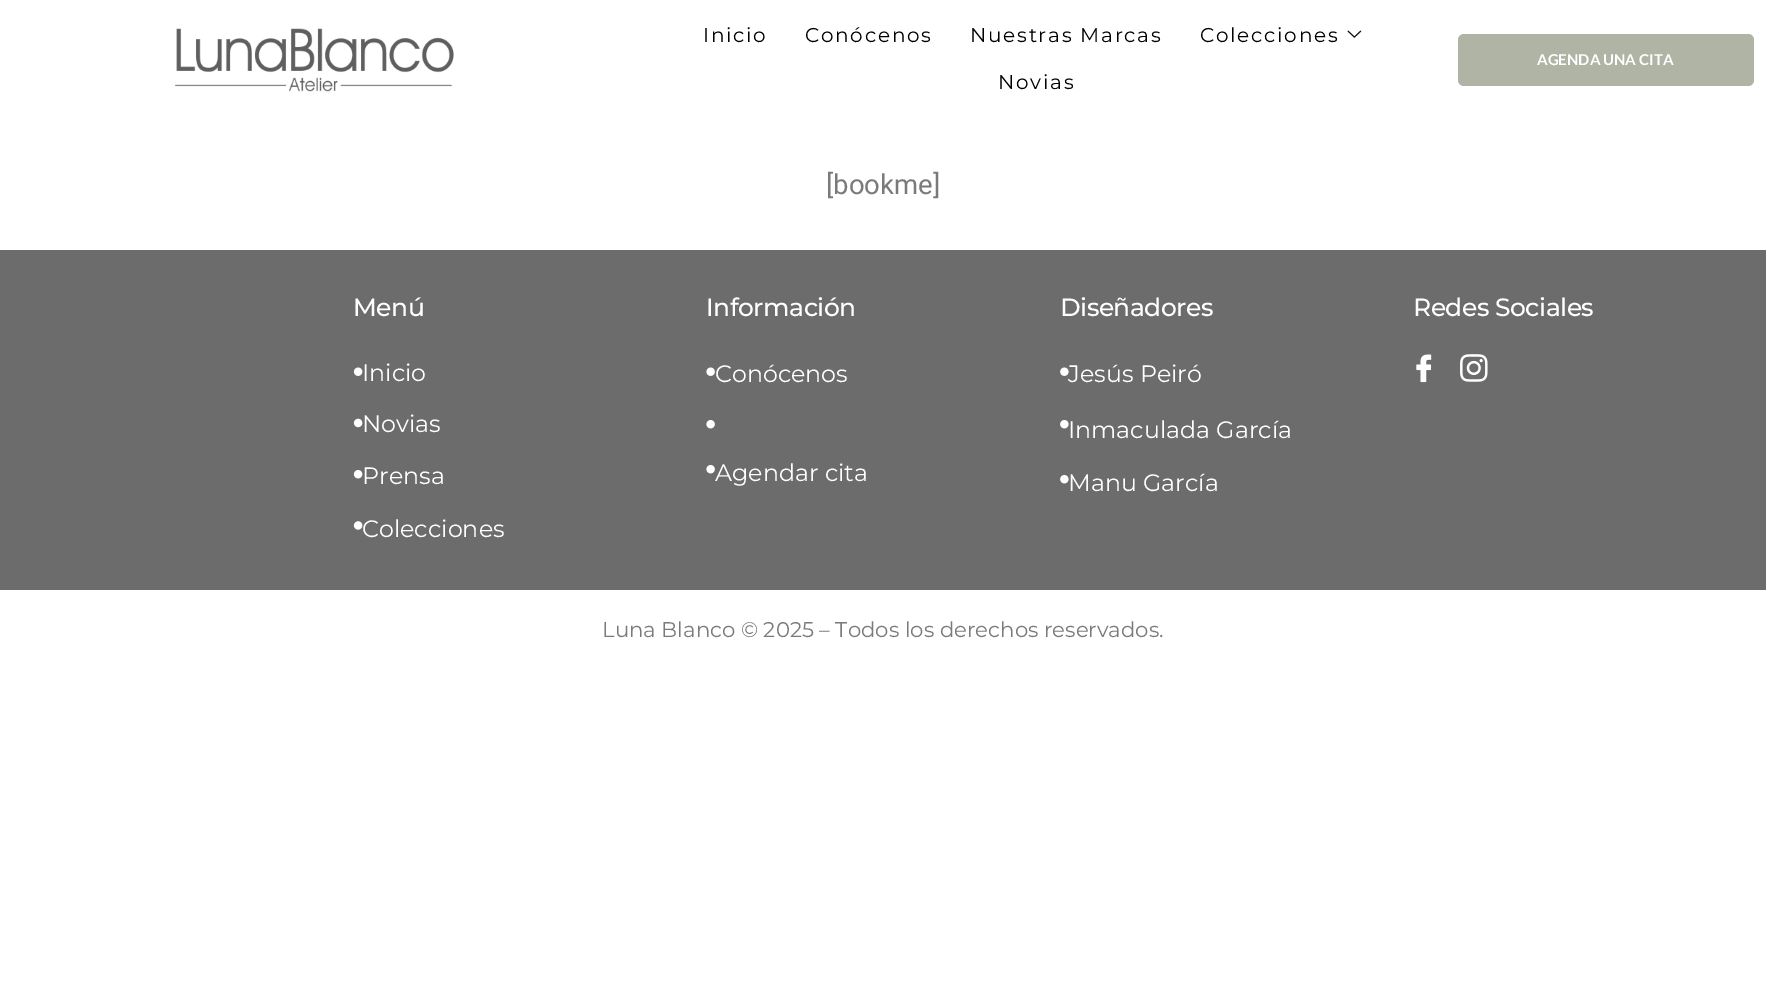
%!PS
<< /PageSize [1766 997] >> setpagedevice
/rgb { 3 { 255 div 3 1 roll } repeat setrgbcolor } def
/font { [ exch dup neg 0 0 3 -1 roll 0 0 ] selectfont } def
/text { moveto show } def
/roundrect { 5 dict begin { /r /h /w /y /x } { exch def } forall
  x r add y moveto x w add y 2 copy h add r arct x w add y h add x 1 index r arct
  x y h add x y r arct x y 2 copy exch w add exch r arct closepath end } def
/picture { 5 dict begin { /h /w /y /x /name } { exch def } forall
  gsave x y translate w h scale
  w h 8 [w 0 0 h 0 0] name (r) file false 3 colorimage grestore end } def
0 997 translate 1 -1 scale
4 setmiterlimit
255 255 255 rgb
0 0 1766 997 rectfill
(img_01.rgb) 175 28 279 64 picture
(img_02.rgb) 1347 30 15 8 picture
175 180 165 rgb
1458 34 296 52 6 roundrect fill
108 108 108 rgb
0 250 1766 340 rectfill
(img_03.rgb) 353 367 10 9 picture
(img_04.rgb) 353 418 10 10 picture
(img_05.rgb) 353 470 10 9 picture
(img_06.rgb) 353 521 10 9 picture
(img_07.rgb) 706 367 9 9 picture
(img_08.rgb) 706 420 9 9 picture
(img_08.rgb) 706 465 9 9 picture
(img_09.rgb) 1060 367 9 9 picture
(img_10.rgb) 1060 420 9 9 picture
(img_10.rgb) 1060 475 9 9 picture
(img_11.rgb) 1416 354 16 29 picture
(img_12.rgb) 1460 354 28 28 picture
/Montserrat-Regular 20 font
0 0 0 rgb
703 42 moveto 1.75 0 (Inicio) ashow
805 42 moveto 1.75 0 (Conócenos) ashow
970 42 moveto 1.75 0 (Nuestras Marcas) ashow
1200 42 moveto 1.75 0 (Colecciones) ashow
998 89 moveto 1.75 0 (Novias) ashow
/Lato-Bold 15 font
255 255 255 rgb
(AGENDA UNA CITA) 1537 65 text
/Roboto-Regular 27.5 font
122 122 122 rgb
([bookme]) 826 194 text
/Montserrat-Medium 25 font
255 255 255 rgb
353 316 moveto -0.5 0 (Menú) ashow
/Montserrat-Regular 23.75 font
(Inicio) 362 381 text
(Novias) 362 432 text
(Prensa) 362 484 text
(Colecciones) 362 537 text
/Montserrat-Medium 25 font
706 316 moveto -0.5 0 (Información) ashow
/Montserrat-Regular 23.75 font
(Conócenos) 715 382 text
(Agendar cita) 715 481 text
/Montserrat-Medium 25 font
1060 316 moveto -0.5 0 (Diseñadores) ashow
/Montserrat-Regular 23.75 font
(Jesús Peiró) 1068 382 text
(Inmaculada García) 1068 438 text
(Manu García) 1068 491 text
/Montserrat-Medium 25 font
1413 316 moveto -0.5 0 (Redes Sociales) ashow
/Montserrat-Regular 21.25 font
122 122 122 rgb
(Luna Blanco © 2025 – Todos los derechos reservados.) 602 637 text
showpage
